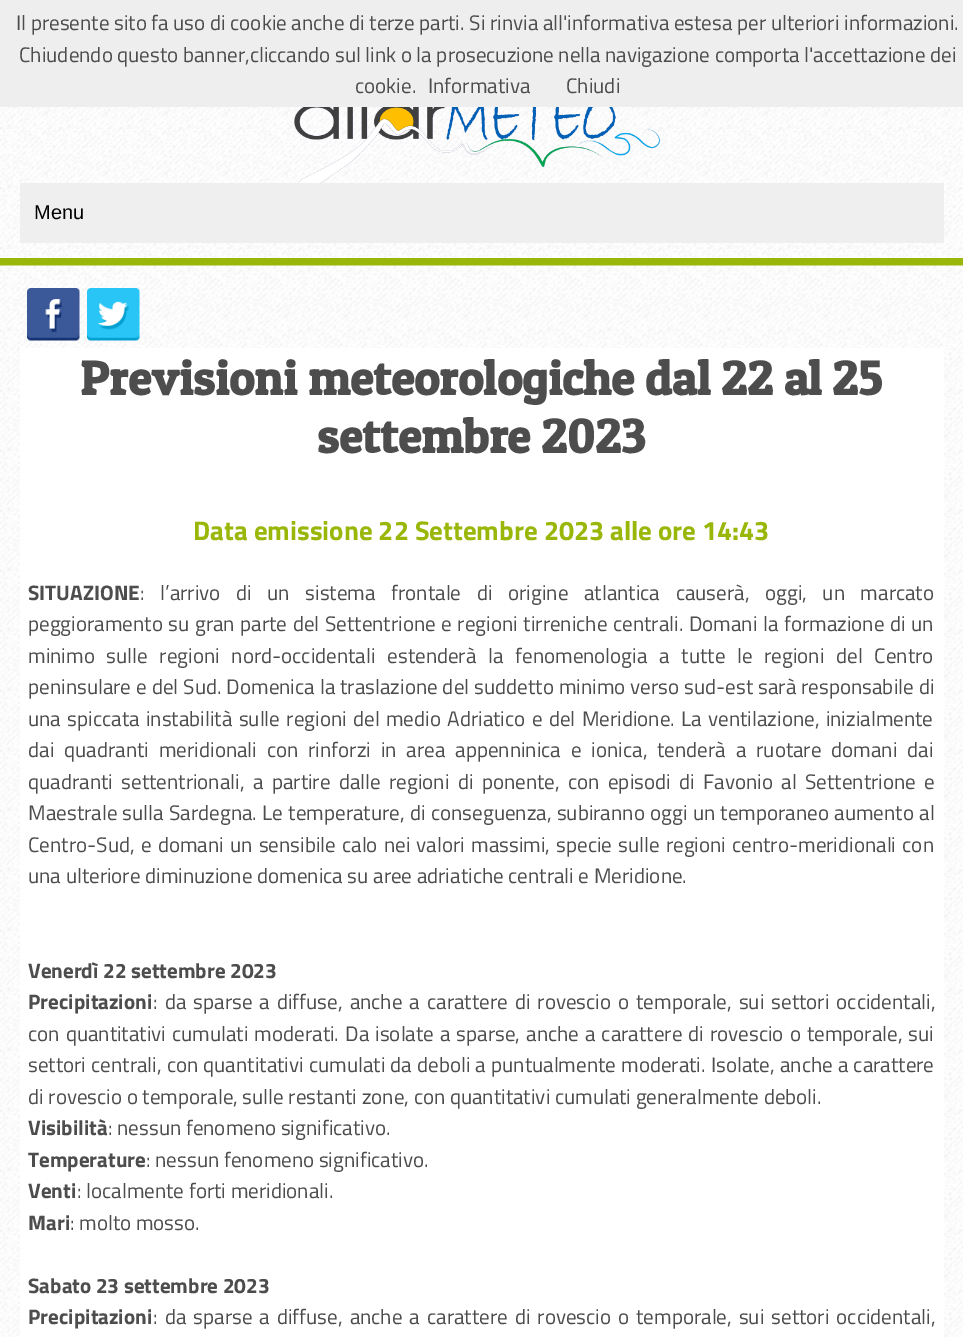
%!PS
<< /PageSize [963 1337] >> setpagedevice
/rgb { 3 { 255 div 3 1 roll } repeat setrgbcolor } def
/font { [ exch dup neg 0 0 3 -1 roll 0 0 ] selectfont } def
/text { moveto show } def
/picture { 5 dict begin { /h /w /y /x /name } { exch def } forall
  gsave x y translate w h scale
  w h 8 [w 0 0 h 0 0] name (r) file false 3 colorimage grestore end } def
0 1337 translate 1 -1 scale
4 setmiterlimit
255 255 255 rgb
0 0 963 1337 rectfill
238 238 238 rgb
0 0 963 107 rectfill
(img_01.rgb) 0 107 963 151 picture
152 183 9 rgb
0 258 963 8 rectfill
(img_02.rgb) 294 107 366 76 picture
239 239 239 rgb
20 183 924 60 rectfill
(img_03.rgb) 0 265 963 1072 picture
(img_04.rgb) 27 288 53 53 picture
(img_05.rgb) 87 288 53 53 picture
255 255 255 rgb
20 348 924 989 rectfill
/TitilliumWeb-Regular 21 font
77 77 77 rgb
(Il presente sito fa uso di cookie anche di terze parti. Si rinvia all'informativa estesa per ulteriori informazioni.) 16 30 text
(Chiudendo questo banner,cliccando sul link o la prosecuzione nella navigazione comporta l'accettazione dei) 19 62 text
(cookie.) 355 93 text
(Informativa) 428 93 text
(Chiudi) 566 93 text
/LiberationSans-Regular 20 font
0 0 0 rgb
(Menu) 34 219 text
/PatuaOne-Bold 48 font
77 77 77 rgb
(Previsioni meteorologiche dal 22 al 25) 80 395 text
(settembre 2023) 317 453 text
/TitilliumWeb-Bold 27 font
152 183 9 rgb
(Data emissione 22 Settembre 2023 alle ore 14:43) 193 540 text
/TitilliumWeb-Bold 21 font
77 77 77 rgb
(SITUAZIONE) 28 600 text
/TitilliumWeb-Regular 21 font
140 600 moveto 11 0 32 (: l’arrivo di un sistema frontale di origine atlantica causerà, oggi, un marcato) widthshow
28 631 moveto 1 0 32 (peggioramento su gran parte del Settentrione e regioni tirreniche centrali. Domani la formazione di un) widthshow
28 663 moveto 7.1 0 32 (minimo sulle regioni nord-occidentali estenderà la fenomenologia a tutte le regioni del Centro) widthshow
28 694 moveto 0.4 0 32 (peninsulare e del Sud. Domenica la traslazione del suddetto minimo verso sud-est sarà responsabile di) widthshow
28 726 moveto 1.75 0 32 (una spiccata instabilità sulle regioni del medio Adriatico e del Meridione. La ventilazione, inizialmente) widthshow
28 757 moveto 5.25 0 32 (dai quadranti meridionali con rinforzi in area appenninica e ionica, tenderà a ruotare domani dai) widthshow
28 789 moveto 3.75 0 32 (quadranti settentrionali, a partire dalle regioni di ponente, con episodi di Favonio al Settentrione e) widthshow
28 820 moveto 0.75 0 32 (Maestrale sulla Sardegna. Le temperature, di conseguenza, subiranno oggi un temporaneo aumento al) widthshow
28 852 moveto 1.6 0 32 (Centro-Sud, e domani un sensibile calo nei valori massimi, specie sulle regioni centro-meridionali con) widthshow
(una ulteriore diminuzione domenica su aree adriatiche centrali e Meridione.) 28 883 text
/TitilliumWeb-Bold 21 font
(Venerdì 22 settembre 2023) 28 978 text
(Precipitazioni) 28 1009 text
/TitilliumWeb-Regular 21 font
153 1009 moveto 2.4 0 32 (: da sparse a diffuse, anche a carattere di rovescio o temporale, sui settori occidentali,) widthshow
28 1041 moveto 1.4 0 32 (con quantitativi cumulati moderati. Da isolate a sparse, anche a carattere di rovescio o temporale, sui) widthshow
28 1072 moveto 0.5 0 32 (settori centrali, con quantitativi cumulati da deboli a puntualmente moderati. Isolate, anche a carattere) widthshow
(di rovescio o temporale, sulle restanti zone, con quantitativi cumulati generalmente deboli.) 28 1104 text
/TitilliumWeb-Bold 21 font
(Visibilità) 28 1135 text
/TitilliumWeb-Regular 21 font
(: nessun fenomeno significativo.) 108 1135 text
/TitilliumWeb-Bold 21 font
(Temperature) 28 1167 text
/TitilliumWeb-Regular 21 font
(: nessun fenomeno significativo.) 146 1167 text
/TitilliumWeb-Bold 21 font
(Venti) 28 1198 text
/TitilliumWeb-Regular 21 font
(: localmente forti meridionali.) 77 1198 text
/TitilliumWeb-Bold 21 font
(Mari) 28 1230 text
/TitilliumWeb-Regular 21 font
(: molto mosso.) 70 1230 text
/TitilliumWeb-Bold 21 font
(Sabato 23 settembre 2023) 28 1293 text
(Precipitazioni) 28 1324 text
/TitilliumWeb-Regular 21 font
153 1324 moveto 2.4 0 32 (: da sparse a diffuse, anche a carattere di rovescio o temporale, sui settori occidentali,) widthshow
showpage
